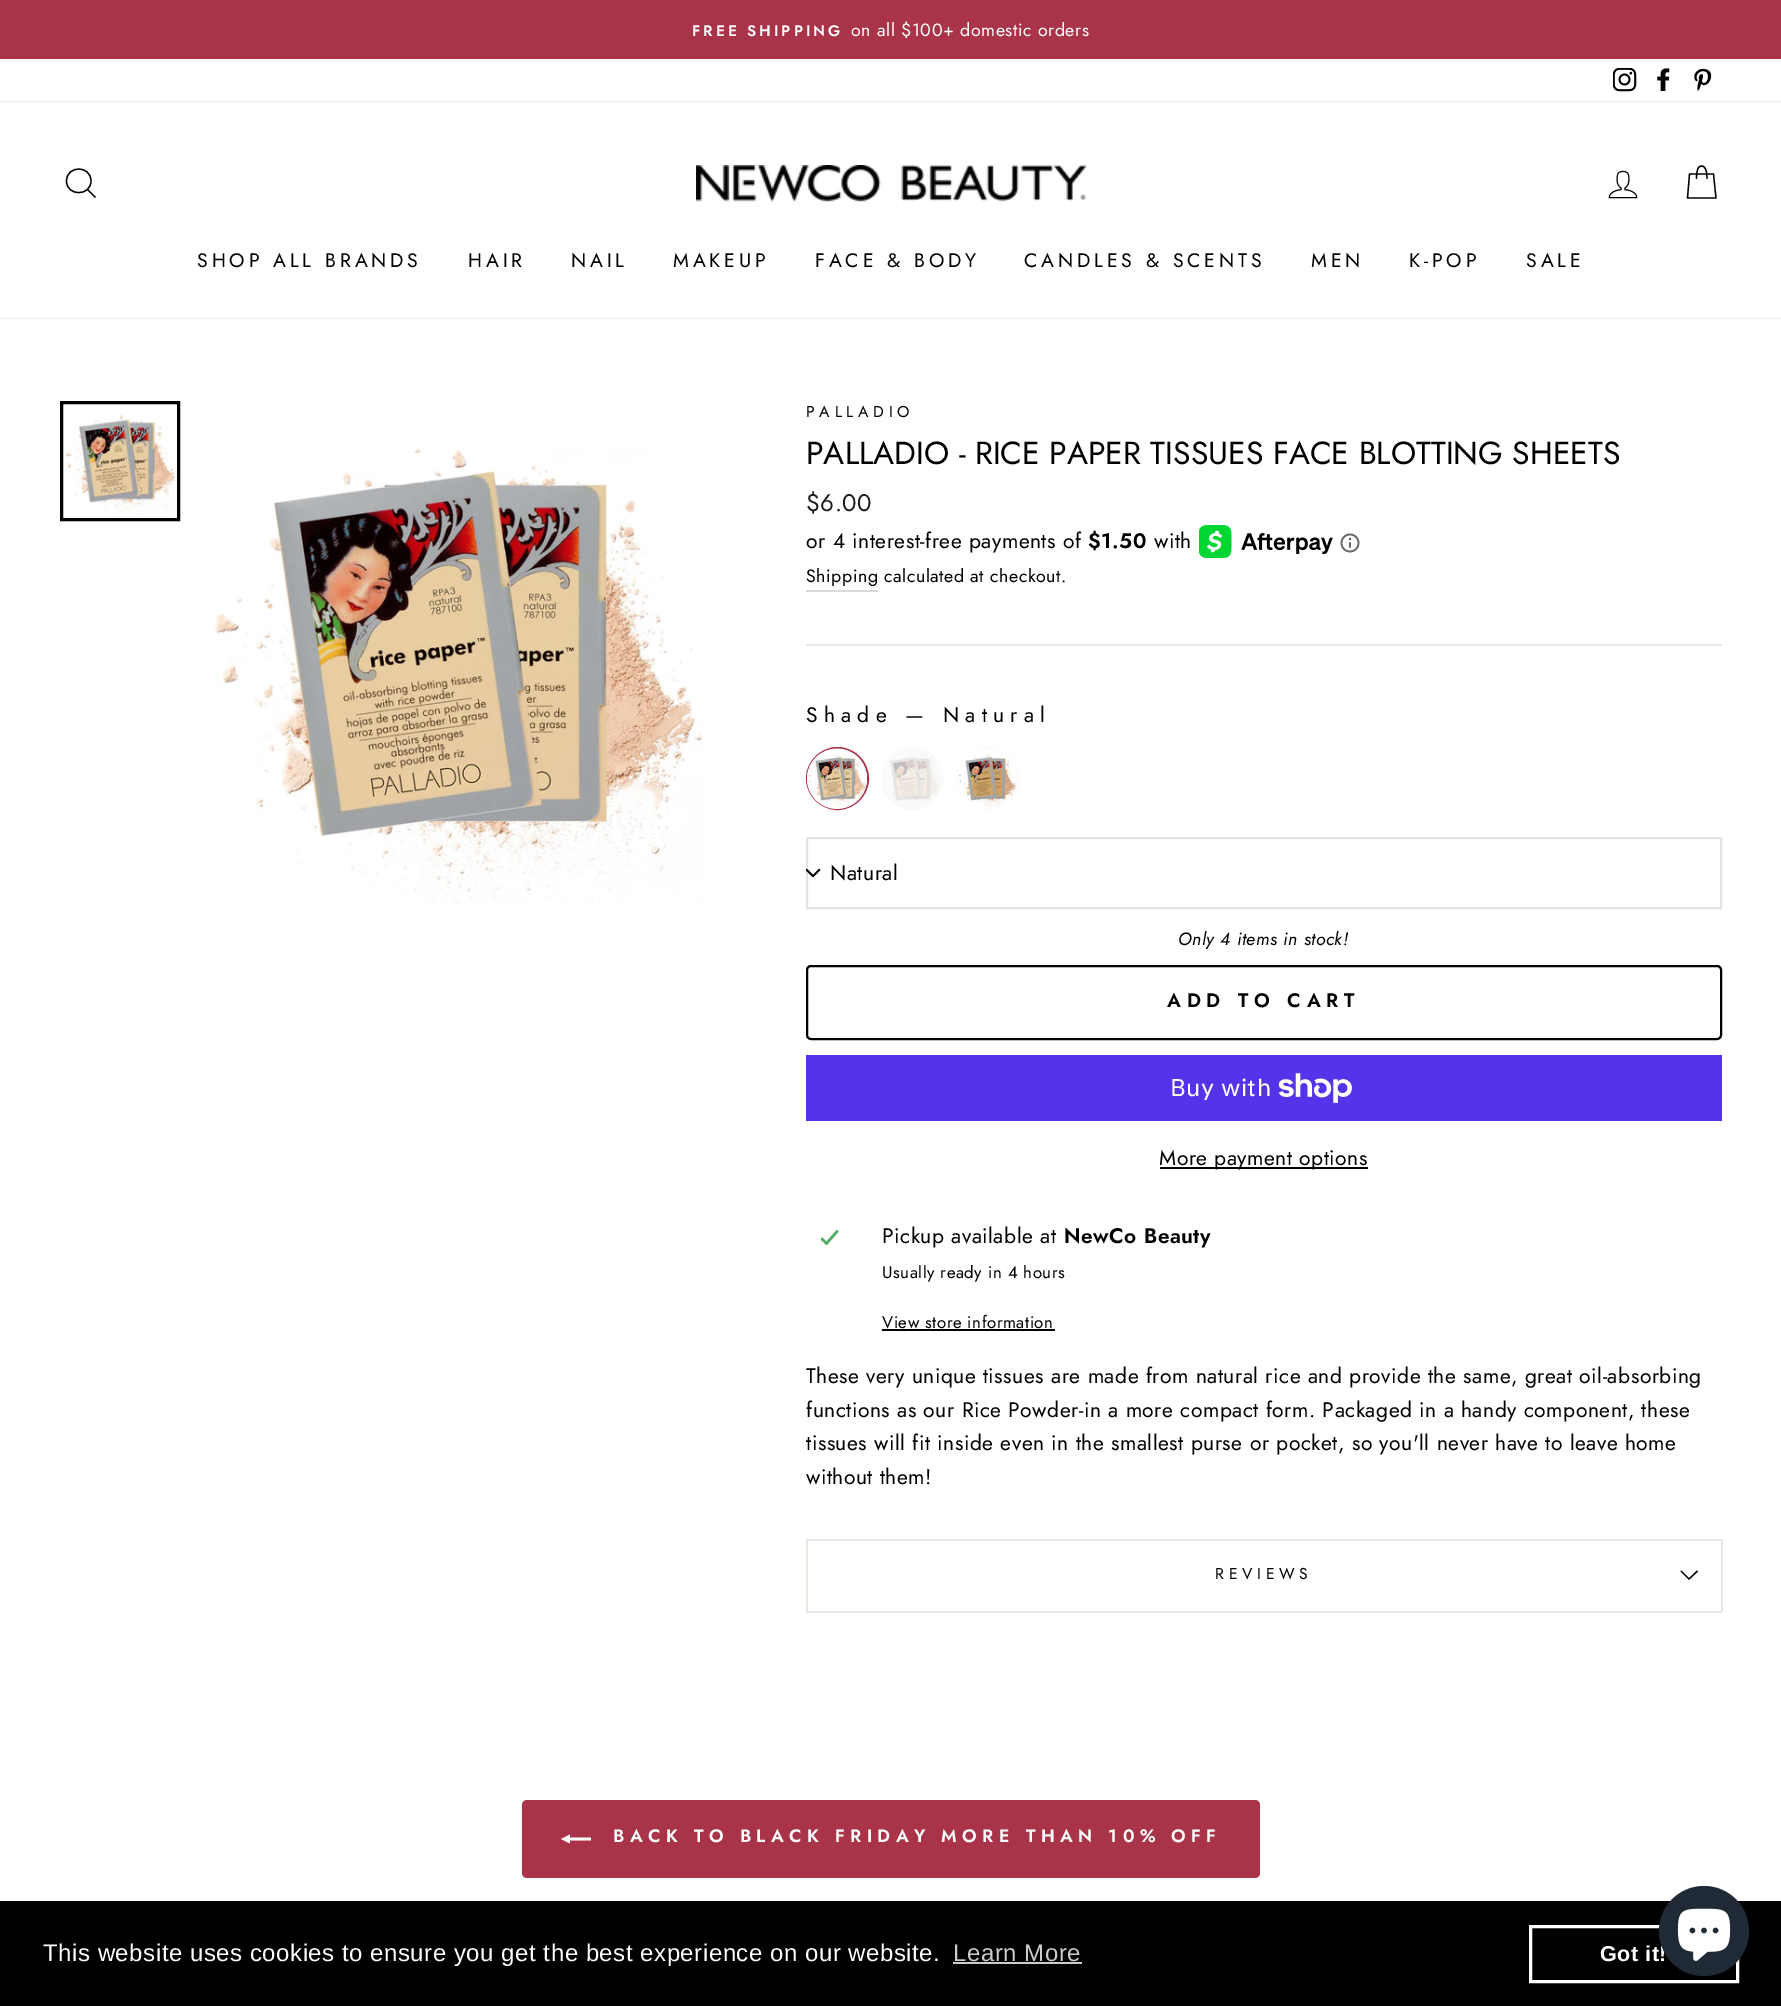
%!PS
<< /PageSize [1781 2006] /PageUsesTransparency true >> setpagedevice
/rgb { 3 { 255 div 3 1 roll } repeat setrgbcolor } def
/font { [ exch dup neg 0 0 3 -1 roll 0 0 ] selectfont } def
/text { moveto show } def
/alpha { dup .setfillconstantalpha .setstrokeconstantalpha } def
/circle { newpath 0 360 arc closepath } def
/roundrect { 5 dict begin { /r /h /w /y /x } { exch def } forall
  x r add y moveto x w add y 2 copy h add r arct x w add y h add x 1 index r arct
  x y h add x y r arct x y 2 copy exch w add exch r arct closepath end } def
/shadow { 12 dict begin { /a /b /q /h /w /y /x } { exch def } forall gsave /was 0 def
  9 -2 -9 { dup b mul 4 div /e exch def 1 sub .425 mul 2.718 exch exp 1 add a .99 .min exch div /now exch def
    1 1 now sub 1 was sub div sub alpha /was now def
    w h .min e 2 mul add 0 gt { x e sub y e sub w e 2 mul add h e 2 mul add
      q e add b .6 mul add w h .min 2 div e add .min 0 .max roundrect fill } if } for grestore end } def
/picture { 5 dict begin { /h /w /y /x /name } { exch def } forall
  gsave x y translate w h scale
  w h 8 [w 0 0 h 0 0] name (r) file false 3 colorimage grestore end } def
0 .pushpdf14devicefilter
0 2006 translate 1 -1 scale
4 setmiterlimit
255 255 255 rgb
0 0 1781 2006 rectfill
169 51 73 rgb
0 0 1781 59 rectfill
(img_01.rgb) 1613 68 24 24 picture
(img_02.rgb) 1657 68 13 23 picture
(img_03.rgb) 1694 68 18 23 picture
gsave
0 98 moveto 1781 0 rlineto 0 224 rlineto -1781 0 rlineto closepath 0 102 moveto 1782 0 rlineto 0 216 rlineto -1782 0 rlineto closepath eoclip newpath
0 0 0 rgb
0 102 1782 216 0 1 0.2 shadow
grestore
0 0 0 rgb
1.3 setlinewidth
91 181 moveto 0 15.5 -24.5 15.5 -24.5 0 rcurveto 0 -16 24.5 -16 24.5 0 rcurveto closepath 95.5 197.5 moveto -8 -8 rlineto stroke
(img_04.rgb) 696 165 390 37 picture
(img_05.rgb) 1608 170 30 29 picture
1696.5 179 moveto 0 -10.5 2 -13 5 -13 rcurveto 3 0 5.5 2.5 5.5 13 rcurveto 1689.5 174 moveto 24 0 rlineto 2.5 24 rlineto -28.5 0 rlineto closepath stroke
3 setlinewidth
61.5 402.5 117 117 rectstroke
(img_06.rgb) 65 414 112 103 picture
(img_07.rgb) 214 445 488 458 picture
(img_08.rgb) 1199 525 134 33 picture
(img_09.rgb) 1340 533 20 20 picture
217 217 217 rgb
806 590 72 2 rectfill
232 232 225 rgb
806 644 916 2 rectfill
169 51 73 rgb
2 setlinewidth
837.5 778.5 30.5 circle stroke
255 255 255 rgb
837 779 30 circle fill
(img_10.rgb) 807 748 61 61 picture
251 251 251 rgb
912.5 778.5 30.5 circle stroke
255 255 255 rgb
912 779 30 circle fill
(img_11.rgb) 883 754 59 51 picture
gsave
882 749 60 60 30 roundrect clip newpath
0.75 alpha
248 248 248 rgb
912.5 778.5 31.5 circle fill
grestore
251 251 251 rgb
987.5 778.5 30.5 circle stroke
255 255 255 rgb
987 779 30 circle fill
(img_12.rgb) 958 754 58 55 picture
227 227 227 rgb
807 838 914 70 rectstroke
(img_13.rgb) 806 868 15 10 picture
0 0 0 rgb
807 966 914 73 4 roundrect stroke
84 51 235 rgb
806 1055 916 66 rectfill
(img_14.rgb) 1278 1073 74 30 picture
0 0 0 rgb
1160 1167 208 2 rectfill
(img_15.rgb) 821 1230 18 15 picture
882 1329 173 2 rectfill
232 232 225 rgb
806 1611 916 2 rectfill
806 1539 916 2 rectfill
1721 1539 2 72 rectfill
806 1539 2 72 rectfill
0 0 0 rgb
1.3 setlinewidth
1681 1571 moveto 8 8 rlineto 8.5 -8 rlineto stroke
169 51 73 rgb
522 1800 738 78 5 roundrect fill
255 255 255 rgb
591 1837.5 moveto 0 3 rlineto -21 0 rlineto 0 3 rlineto -9 -4.5 rlineto 9 -4.5 rlineto 0 3 rlineto closepath fill
0 0 0 rgb
0 1901 1781 105 rectfill
204 204 204 rgb
953 1962 129 2 rectfill
255 255 255 rgb
3 setlinewidth
1530.5 1926.5 207 55 rectstroke
/Jost-SemiBold 15.25 font
692 36 moveto 3 0 (FREE SHIPPING) ashow
/Jost-Regular 17.8 font
851 36 moveto 0.52 0 (on all $100+ domestic orders) ashow
/Jost-Regular 19.5 font
0 0 0 rgb
197 267 moveto 3.9 0 (SHOP ALL BRANDS) ashow
468 267 moveto 3.9 0 (HAIR) ashow
571 267 moveto 3.9 0 (NAIL) ashow
673 267 moveto 3.9 0 (MAKEUP) ashow
815 267 moveto 3.9 0 (FACE & BODY) ashow
1024 267 moveto 3.9 0 (CANDLES & SCENTS) ashow
1311 267 moveto 3.9 0 (MEN) ashow
1409 267 moveto 3.9 0 (K-POP) ashow
1526 267 moveto 3.9 0 (SALE) ashow
/Jost-Regular 15.75 font
806 417 moveto 4.75 0 (PALLADIO) ashow
/Jost-Regular 31.9 font
(PALLADIO - RICE PAPER TISSUES FACE BLOTTING SHEETS) 806 464 text
/Jost-Regular 24 font
28 29 29 rgb
806 511 moveto 0.52 0 ($6.00) ashow
/Jost-Regular 21 font
0 0 0 rgb
806 548 moveto 0.52 0 (or 4 interest-free payments of) ashow
/Jost-SemiBold 21 font
1088 548 moveto 0.52 0 ($1.50) ashow
/Jost-Regular 21 font
1154 548 moveto 0.52 0 (with) ashow
/Jost-Regular 17.8 font
806 582 moveto 0.52 0 (Shipping) ashow
884 582 moveto 0.52 0 (calculated at checkout.) ashow
/Jost-Regular 21 font
806 722 moveto 6.25 0 (Shade — Natural) ashow
830 880 moveto 0.52 0 (Natural) ashow
/Jost-Italic 17.8 font
1178 945 moveto 0.52 0 (Only 4 items in stock!) ashow
/Jost-SemiBold 19.5 font
1167 1007 moveto 5.8 0 (ADD TO CART) ashow
/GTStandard-Regular 24 font
255 255 255 rgb
1170 1096 moveto 0.52 0 (Buy with) ashow
/Jost-Regular 21 font
0 0 0 rgb
1159 1165 moveto 0.52 0 (More payment options) ashow
882 1243 moveto 0.52 0 (Pickup available at) ashow
/Jost-SemiBold 21 font
1064 1243 moveto 0.52 0 (NewCo Beauty) ashow
/Jost-Regular 16.75 font
882 1278 moveto 0.52 0 (Usually ready in 4 hours) ashow
882 1328 moveto 0.52 0 (View store information) ashow
/Jost-Regular 21 font
806 1383 moveto 0.52 0 (These very unique tissues are made from natural rice and provide the same, great oil-absorbing) ashow
806 1417 moveto 0.52 0 (functions as our Rice Powder-in a more compact form. Packaged in a handy component, these) ashow
806 1450 moveto 0.52 0 (tissues will fit inside even in the smallest purse or pocket, so you'll never have to leave home) ashow
806 1484 moveto 0.52 0 (without them!) ashow
/Jost-Regular 15.75 font
1215 1579 moveto 4.75 0 (REVIEWS) ashow
/Jost-SemiBold 18 font
255 255 255 rgb
613 1842 moveto 5.4 0 (BACK TO BLACK FRIDAY MORE THAN 10% OFF) ashow
/LiberationSans-Regular 24 font
43 1961 moveto 0.52 0 (This website uses cookies to ensure you get the best experience on our website.) ashow
204 204 204 rgb
953 1961 moveto 0.52 0 (Learn More) ashow
/LiberationSans-Bold 21.5 font
255 255 255 rgb
1600 1961 moveto 0.52 0 (Got it!) ashow
32 42 54 rgb
1704 1931 45 circle fill
(img_16.rgb) 1677 1908 54 53 picture
.poppdf14devicefilter showpage
